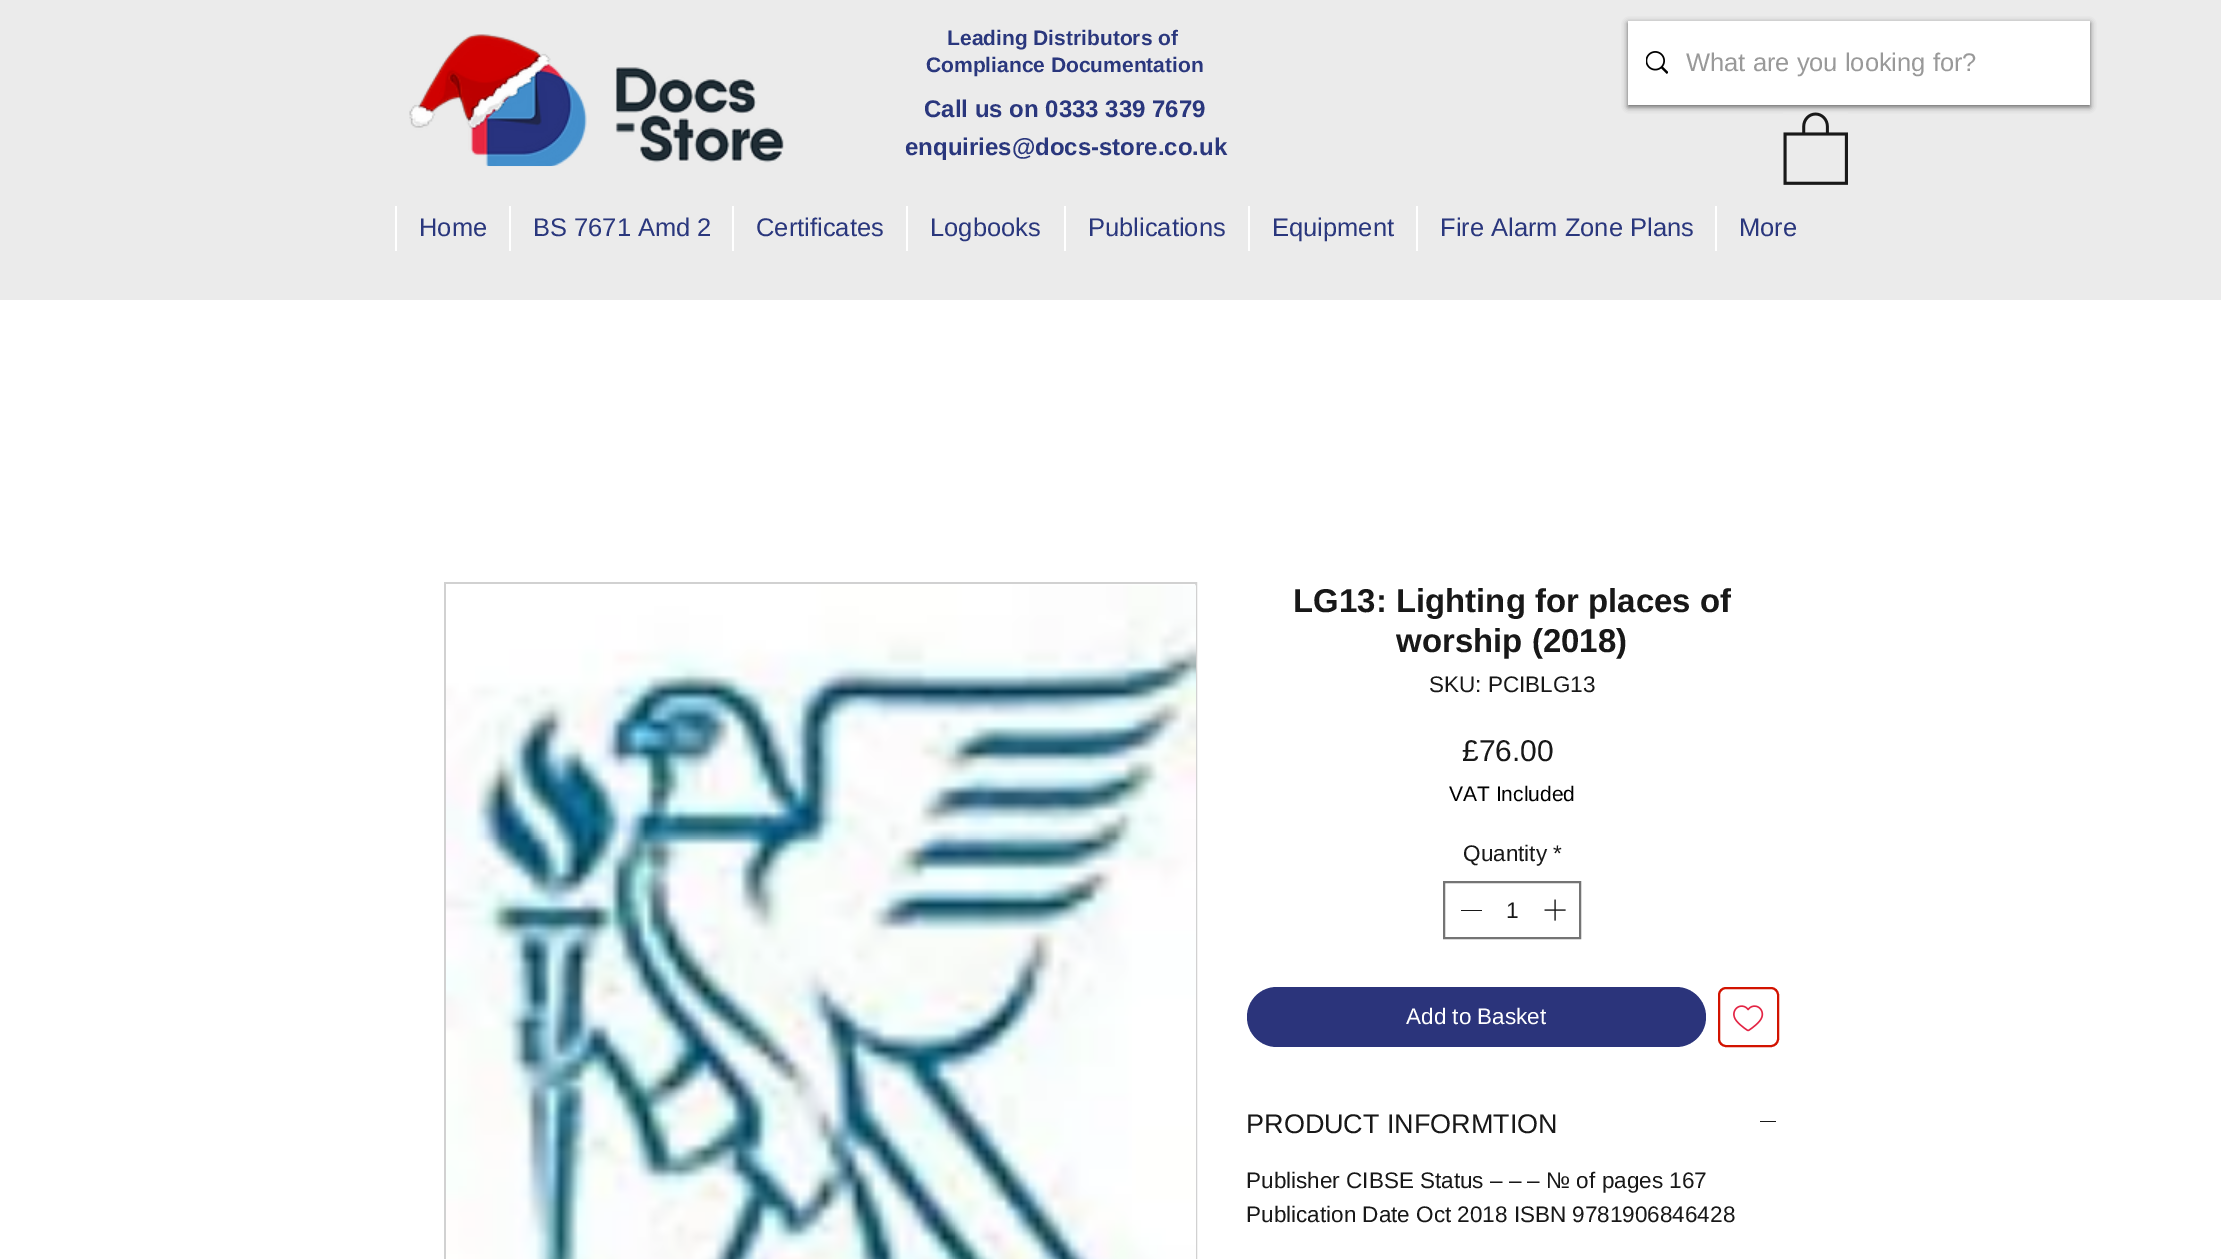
%!PS
<< /PageSize [2221 1259] /PageUsesTransparency true >> setpagedevice
/rgb { 3 { 255 div 3 1 roll } repeat setrgbcolor } def
/font { [ exch dup neg 0 0 3 -1 roll 0 0 ] selectfont } def
/text { moveto show } def
/alpha { dup .setfillconstantalpha .setstrokeconstantalpha } def
/roundrect { 5 dict begin { /r /h /w /y /x } { exch def } forall
  x r add y moveto x w add y 2 copy h add r arct x w add y h add x 1 index r arct
  x y h add x y r arct x y 2 copy exch w add exch r arct closepath end } def
/shadow { 12 dict begin { /a /b /q /h /w /y /x } { exch def } forall gsave /was 0 def
  9 -2 -9 { dup b mul 4 div /e exch def 1 sub .425 mul 2.718 exch exp 1 add a .99 .min exch div /now exch def
    1 1 now sub 1 was sub div sub alpha /was now def
    w h .min e 2 mul add 0 gt { x e sub y e sub w e 2 mul add h e 2 mul add
      q e add b .6 mul add w h .min 2 div e add .min 0 .max roundrect fill } if } for grestore end } def
/picture { 5 dict begin { /h /w /y /x /name } { exch def } forall
  gsave x y translate w h scale
  w h 8 [w 0 0 h 0 0] name (r) file false 3 colorimage grestore end } def
0 .pushpdf14devicefilter
0 1259 translate 1 -1 scale
4 setmiterlimit
255 255 255 rgb
0 0 2221 1259 rectfill
235 235 235 rgb
0 0 2221 300 rectfill
(img_01.rgb) 409 34 375 133 picture
0 0 0 rgb
1628 23 462 84 0 3 0.6 shadow
255 255 255 rgb
1628 21 462 84 rectfill
(img_02.rgb) 1646 51 22 23 picture
(img_03.rgb) 1783 112 65 73 picture
395 206 2 45 rectfill
509 206 2 45 rectfill
732 206 2 45 rectfill
906 206 2 45 rectfill
1064 206 2 45 rectfill
1248 206 2 45 rectfill
1416 206 2 45 rectfill
1715 206 2 45 rectfill
209 209 209 rgb
2 setlinewidth
445 583 751 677 rectstroke
(img_04.rgb) 446 584 750 675 picture
116 116 116 rgb
1444 882 136 56 rectstroke
24 24 24 rgb
1461 910 21 1 rectfill
(img_05.rgb) 1544 899 22 22 picture
43 52 123 rgb
1247 987 459 60 30 roundrect fill
210 19 0 rgb
1719 988 59 58 7 roundrect stroke
(img_06.rgb) 1733 1005 31 27 picture
24 24 24 rgb
1760 1121 16 1 rectfill
/LiberationSans-Bold 21 font
42 55 125 rgb
(Leading Distributors of) 947 45 text
(Compliance Documentation) 926 72 text
/LiberationSans-Bold 24 font
(Call us on 0333 339 7679) 924 117 text
(enquiries@docs-store.co.uk) 905 155 text
/LiberationSans-Regular 25.5 font
153 153 153 rgb
(What are you looking for?) 1686 71 text
42 55 125 rgb
(Home) 419 236 text
(BS 7671 Amd 2) 533 236 text
(Certificates) 756 236 text
(Logbooks) 930 236 text
(Publications) 1088 236 text
(Equipment) 1272 236 text
(Fire Alarm Zone Plans) 1440 236 text
(More) 1739 236 text
/LiberationSans-Bold 33 font
24 24 24 rgb
(LG13: Lighting for places of) 1293 612 text
(worship \(2018\)) 1396 652 text
/LiberationSans-Regular 22.5 font
(SKU: PCIBLG13) 1429 692 text
/LiberationSans-Regular 30 font
(£76.00) 1462 761 text
/LiberationSans-Regular 21 font
0 0 0 rgb
(VAT Included) 1449 801 text
/LiberationSans-Regular 22.5 font
24 24 24 rgb
(Quantity *) 1463 861 text
(1) 1506 918 text
255 255 255 rgb
(Add to Basket) 1406 1024 text
/LiberationSans-Regular 27 font
24 24 24 rgb
(PRODUCT INFORMTION) 1246 1133 text
/LiberationSans-Regular 22.5 font
(Publisher CIBSE Status – – – № of pages 167) 1246 1188 text
(Publication Date Oct 2018 ISBN 9781906846428) 1246 1222 text
.poppdf14devicefilter showpage
